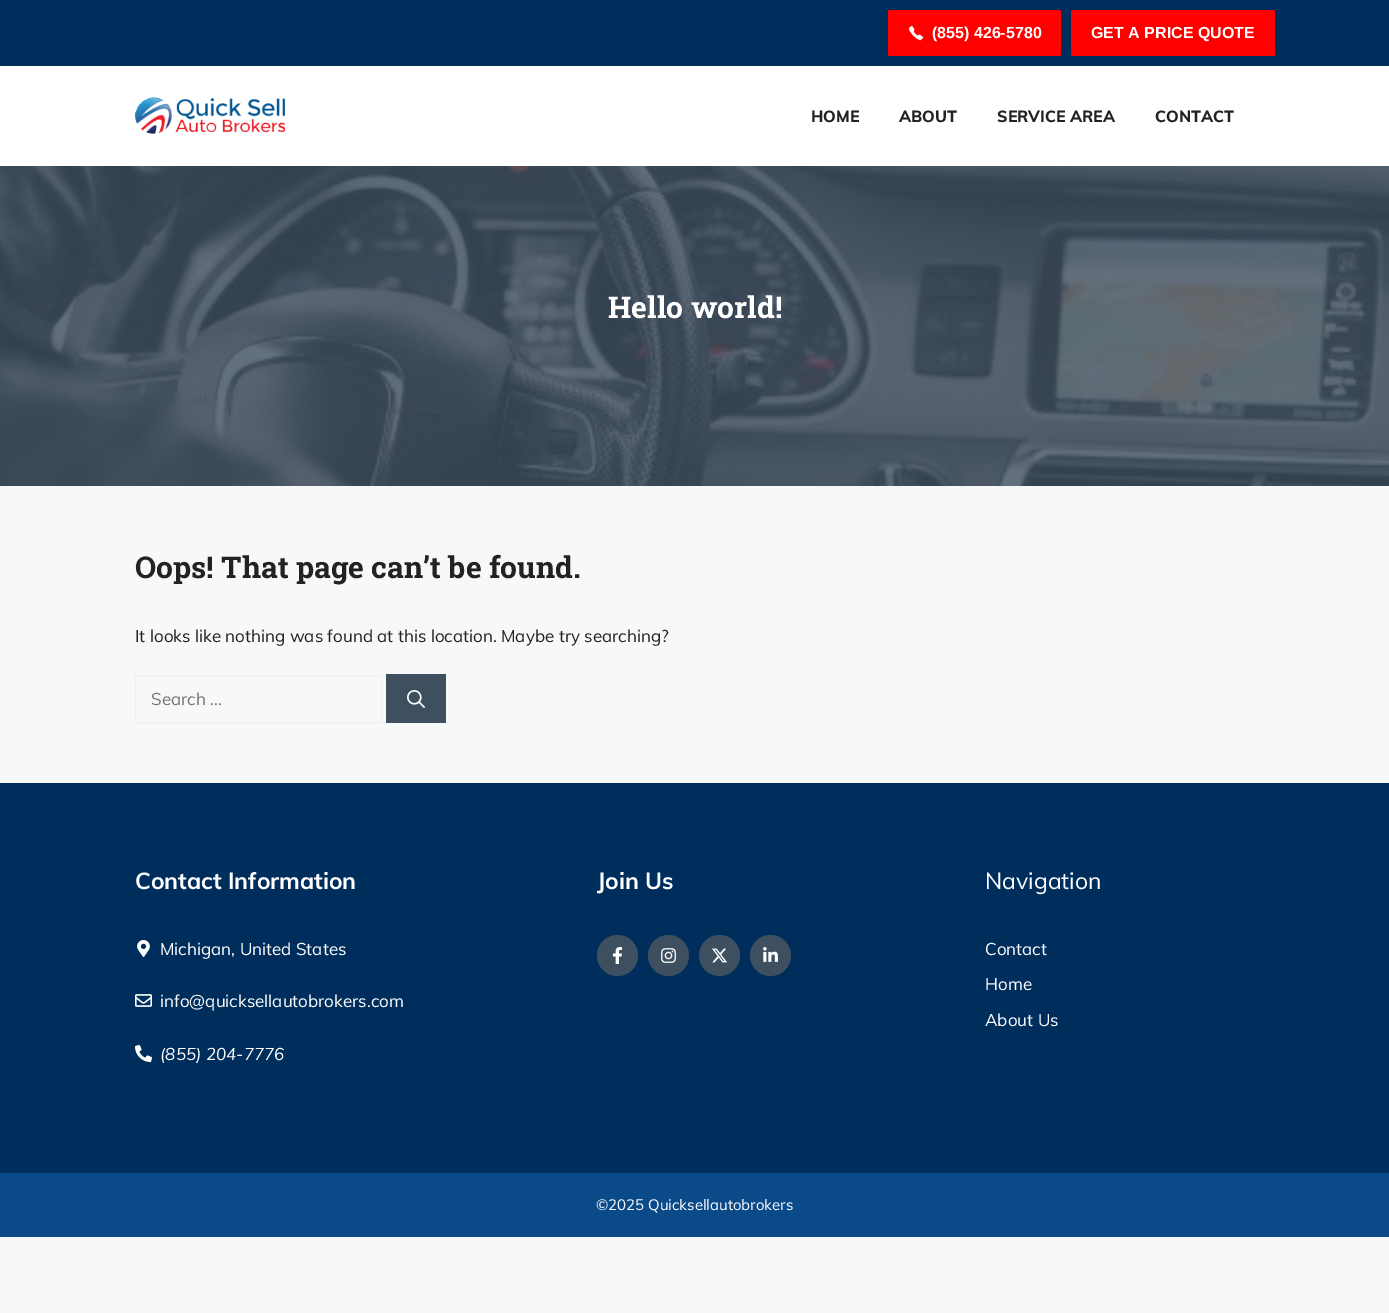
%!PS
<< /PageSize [1389 1313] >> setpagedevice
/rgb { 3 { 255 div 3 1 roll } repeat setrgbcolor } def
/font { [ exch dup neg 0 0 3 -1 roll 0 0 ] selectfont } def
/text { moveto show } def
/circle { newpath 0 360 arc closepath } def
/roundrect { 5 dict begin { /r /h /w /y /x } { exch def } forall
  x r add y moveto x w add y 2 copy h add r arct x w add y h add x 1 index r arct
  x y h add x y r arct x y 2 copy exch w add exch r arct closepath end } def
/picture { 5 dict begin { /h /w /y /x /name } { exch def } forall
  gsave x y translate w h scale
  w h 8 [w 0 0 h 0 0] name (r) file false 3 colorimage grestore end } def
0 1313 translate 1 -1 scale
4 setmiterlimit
247 248 249 rgb
0 0 1389 1313 rectfill
0 46 92 rgb
0 0 1389 66 rectfill
255 0 0 rgb
888 10 173 46 2 roundrect fill
(img_01.rgb) 908 25 16 16 picture
1071 10 204 46 2 roundrect fill
255 255 255 rgb
0 66 1389 100 rectfill
(img_02.rgb) 135 97 150 37 picture
(img_03.rgb) 0 166 1389 320 picture
240 240 240 rgb
135.5 675.5 246 47 rectstroke
62 79 96 rgb
386 674 60 49 rectfill
(img_04.rgb) 407 690 18 18 picture
0 46 92 rgb
0 783 1389 390 rectfill
(img_05.rgb) 137 940 13 17 picture
(img_06.rgb) 135 994 17 13 picture
(img_07.rgb) 135 1045 17 17 picture
62 79 96 rgb
617.5 955.5 20.5 circle fill
(img_08.rgb) 612 947 11 17 picture
668.5 955.5 20.5 circle fill
(img_09.rgb) 661 948 15 15 picture
719.5 955.5 20.5 circle fill
(img_10.rgb) 712 948 15 15 picture
770.5 955.5 20.5 circle fill
(img_11.rgb) 763 947 15 15 picture
11 74 137 rgb
0 1173 1389 64 rectfill
/LiberationSans-Bold 16 font
255 255 255 rgb
(\(855\) 426-5780) 932 38 text
(GET A PRICE QUOTE) 1091 38 text
/Muli-ExtraBold 16 font
34 34 34 rgb
(HOME) 811 122 text
(ABOUT) 899 122 text
(SERVICE AREA) 997 122 text
(CONTACT) 1155 122 text
/RobotoSlab-Bold 30 font
255 255 255 rgb
(Hello world!) 608 318 text
34 34 34 rgb
(Oops! That page can’t be found.) 135 578 text
/Muli-Regular 17 font
(It looks like nothing was found at this location. Maybe try searching?) 135 642 text
117 117 117 rgb
(Search …) 151 705 text
/Muli-Bold 23 font
255 255 255 rgb
(Contact Information) 135 889 text
/Muli-Regular 17 font
(Michigan, United States) 160 955 text
(info@quicksellautobrokers.com) 160 1007 text
/Muli-Italic 17 font
(\(855\) 204-7776) 160 1060 text
/Muli-Bold 23 font
(Join Us) 597 889 text
/Muli-Regular 23 font
(Navigation) 985 889 text
/Muli-Regular 17 font
(Contact) 985 955 text
(Home) 985 990 text
(About Us) 985 1026 text
/Muli-Regular 15 font
(©2025 Quicksellautobrokers) 596 1210 text
showpage
